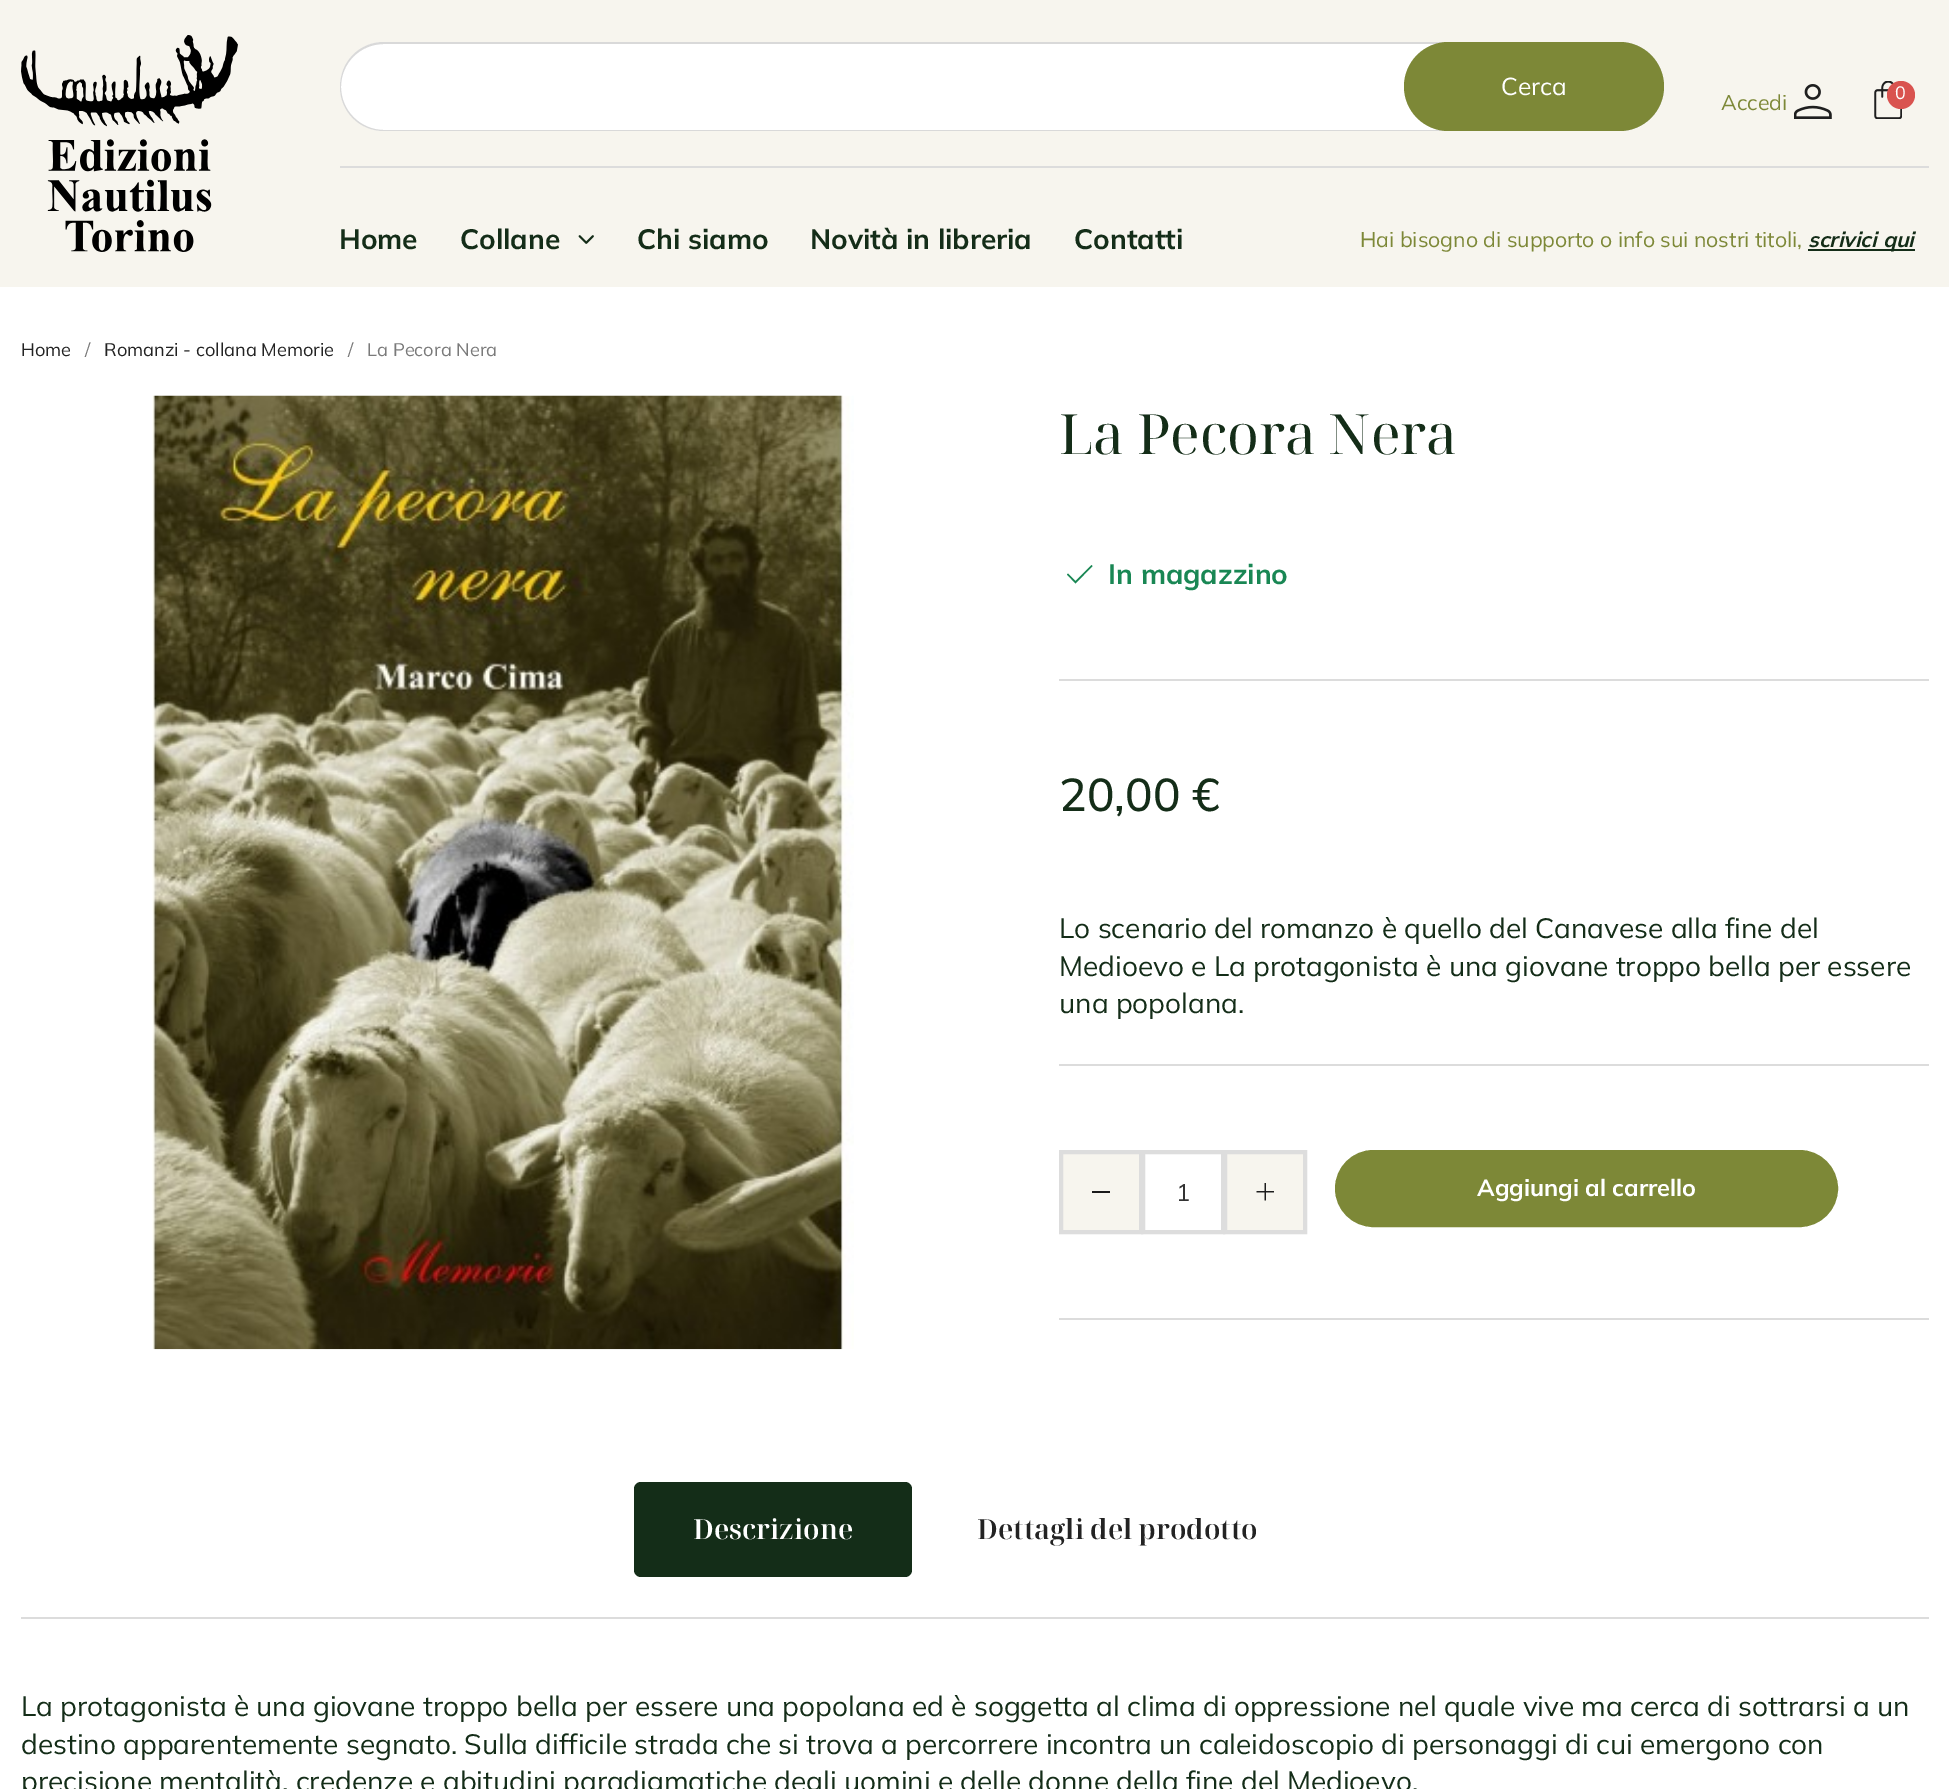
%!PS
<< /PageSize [1949 1789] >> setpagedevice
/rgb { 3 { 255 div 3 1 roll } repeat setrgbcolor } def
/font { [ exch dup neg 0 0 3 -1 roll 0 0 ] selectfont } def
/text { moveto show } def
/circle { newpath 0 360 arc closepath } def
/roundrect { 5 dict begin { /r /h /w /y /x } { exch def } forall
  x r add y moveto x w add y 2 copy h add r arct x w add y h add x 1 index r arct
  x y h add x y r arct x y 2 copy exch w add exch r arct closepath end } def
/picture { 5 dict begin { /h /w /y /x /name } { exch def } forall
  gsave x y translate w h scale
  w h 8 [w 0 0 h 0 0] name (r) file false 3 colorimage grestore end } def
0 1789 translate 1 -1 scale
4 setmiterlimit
255 255 255 rgb
0 0 1949 1789 rectfill
247 245 238 rgb
0 0 1949 287 rectfill
(img_01.rgb) 21 35 217 217 picture
220 220 220 rgb
340 166 1589 2 rectfill
255 255 255 rgb
340 42 1324 89 44.5 roundrect fill
217 217 217 rgb
384 42 moveto 1236 0 rlineto 24 0 44 20 44 45 rcurveto 0 24 -20 44 -44 44 rcurveto -1236 0 rlineto -25 0 -44 -20 -44 -44 rcurveto 0 -25 19 -45 44 -45 rcurveto closepath 384 44 moveto 1236 0 rlineto 24 0 44 19 44 43 rcurveto 0 23 -20 43 -44 43 rcurveto -1236 0 rlineto -24 0 -43 -20 -43 -43 rcurveto 0 -24 19 -43 43 -43 rcurveto closepath eofill
125 136 55 rgb
1404 42 260 89 44.5 roundrect fill
(img_02.rgb) 1794 84 38 35 picture
(img_03.rgb) 1874 81 28 38 picture
217 83 79 rgb
1901 95 14 circle fill
(img_04.rgb) 578 235 16 9 picture
20 45 24 rgb
1808 249 107 2 rectfill
(img_05.rgb) 152 395 702 955 picture
220 220 220 rgb
1059 679 870 2 rectfill
25 135 84 rgb
1075.5 583.5 moveto -8.5 -9 rlineto 1 -1 rlineto 7.5 7.5 rlineto 16 -16 rlineto 1 1 rlineto closepath fill
220 220 220 rgb
1059 1064 870 2 rectfill
1059 1318 870 2 rectfill
221 221 221 rgb
4 setlinewidth
1143 1152 80 80 rectstroke
247 245 238 rgb
1061 1152 moveto 80 0 rlineto 0 80 rlineto -80 0 rlineto closepath gsave fill grestore
221 221 221 rgb
stroke
26 26 26 rgb
1092 1191 18 2 rectfill
247 245 238 rgb
1225 1152 moveto 80 0 rlineto 0 80 rlineto -80 0 rlineto closepath gsave fill grestore
221 221 221 rgb
stroke
(img_06.rgb) 1256 1183 18 18 picture
125 136 55 rgb
1336 1151 501 75 37.5 roundrect gsave fill grestore
2 setlinewidth
stroke
220 220 220 rgb
21 1617 1908 2 rectfill
20 45 24 rgb
634 1482 278 95 7 roundrect fill
/Mulish-Regular 24.5 font
255 255 255 rgb
(Cerca) 1501 95 text
/Mulish-Regular 21.3 font
125 136 55 rgb
(Accedi) 1721 110 text
/Mulish-Regular 18 font
255 255 255 rgb
(0) 1895 99 text
/Mulish-Bold 28 font
20 45 24 rgb
(Home) 339 249 text
(Collane) 460 249 text
(Chi siamo) 637 249 text
(Novità in libreria) 810 249 text
(Contatti) 1074 249 text
/Mulish-Regular 21.3 font
125 136 55 rgb
(Hai bisogno di supporto o info sui nostri titoli,) 1360 247 text
/Mulish-BoldItalic 21.3 font
20 45 24 rgb
(scrivici qui) 1808 247 text
/Mulish-Regular 18.25 font
35 35 35 rgb
(Home) 21 356 text
122 122 122 rgb
(/) 85 356 text
35 35 35 rgb
(Romanzi - collana Memorie) 104 356 text
122 122 122 rgb
(/) 348 356 text
(La Pecora Nera) 367 356 text
/NotoSerifDisplay-Regular 55.25 font
20 45 24 rgb
(La Pecora Nera) 1059 454 text
/Mulish-Bold 28 font
25 135 84 rgb
(In magazzino) 1108 584 text
/Mulish-Medium 46 font
20 45 24 rgb
(20,00 €) 1059 811 text
/Mulish-Regular 28 font
(Lo scenario del romanzo è quello del Canavese alla fine del) 1059 938 text
(Medioevo e La protagonista è una giovane troppo bella per essere) 1059 976 text
(una popolana.) 1059 1013 text
/Mulish-Regular 24 font
51 51 51 rgb
(1) 1176 1201 text
/Mulish-Bold 23.5 font
255 255 255 rgb
(Aggiungi al carrello) 1477 1196 text
/NotoSerifDisplay-SemiBold 27.5 font
(Descrizione) 693 1539 text
35 35 35 rgb
(Dettagli del prodotto) 977 1539 text
/Mulish-Regular 28 font
20 45 24 rgb
(La protagonista è una giovane troppo bella per essere una popolana ed è soggetta al clima di oppressione nel quale vive ma cerca di sottrarsi a un) 21 1716 text
(destino apparentemente segnato. Sulla difficile strada che si trova a percorrere incontra un caleidoscopio di personaggi di cui emergono con) 21 1754 text
(precisione mentalità, credenze e abitudini paradigmatiche degli uomini e delle donne della fine del Medioevo.) 21 1791 text
showpage
